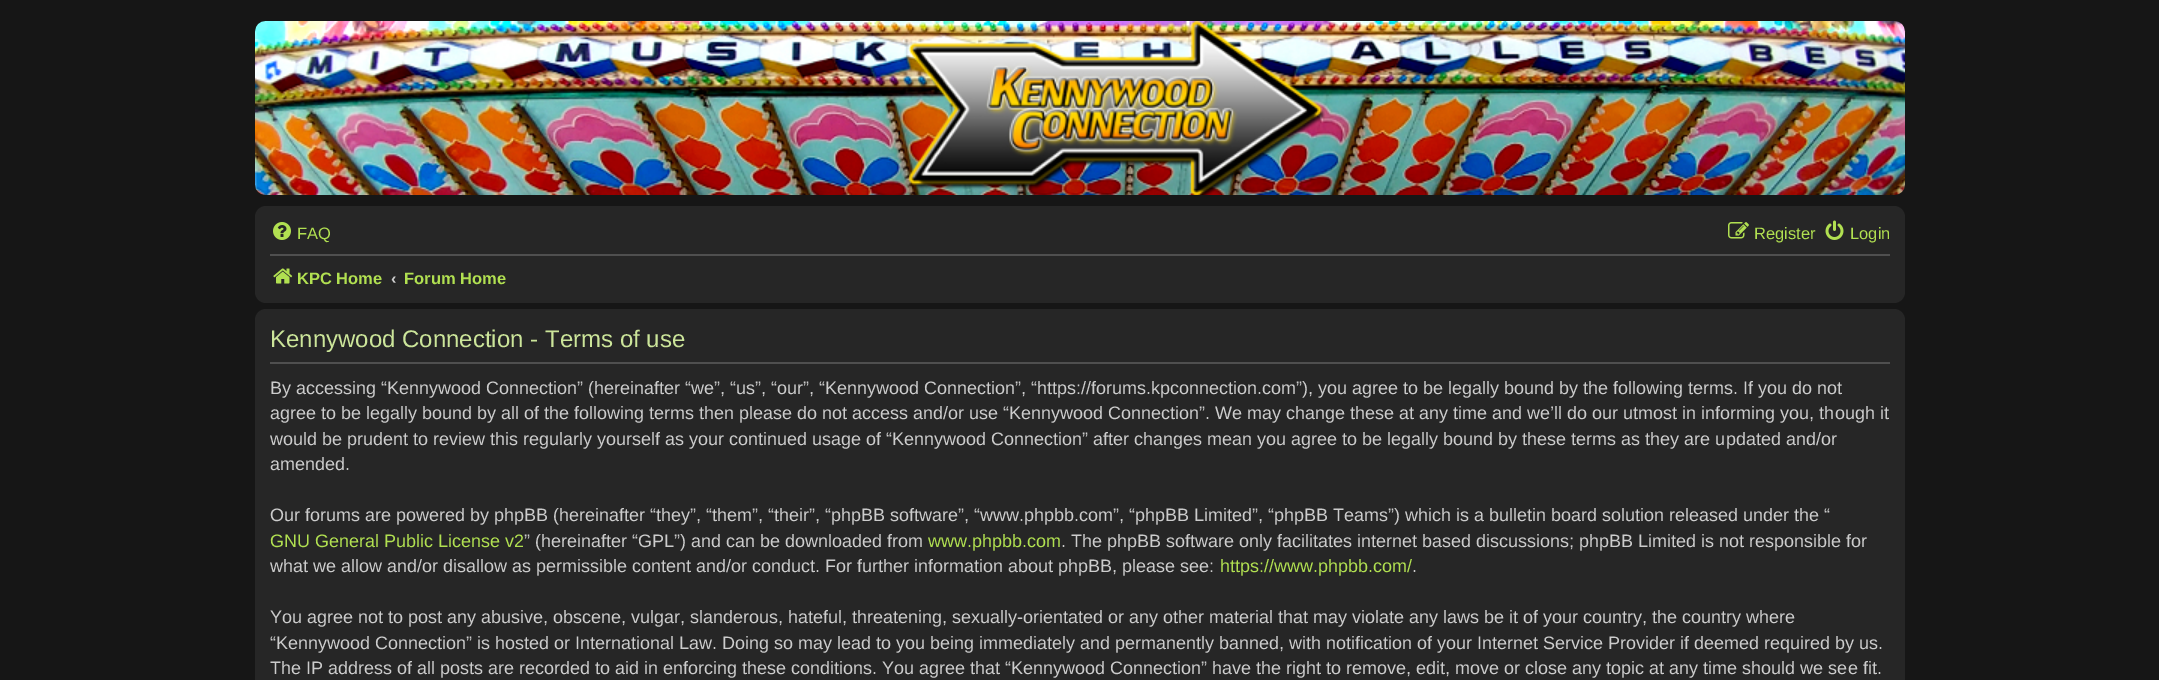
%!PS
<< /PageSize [2159 680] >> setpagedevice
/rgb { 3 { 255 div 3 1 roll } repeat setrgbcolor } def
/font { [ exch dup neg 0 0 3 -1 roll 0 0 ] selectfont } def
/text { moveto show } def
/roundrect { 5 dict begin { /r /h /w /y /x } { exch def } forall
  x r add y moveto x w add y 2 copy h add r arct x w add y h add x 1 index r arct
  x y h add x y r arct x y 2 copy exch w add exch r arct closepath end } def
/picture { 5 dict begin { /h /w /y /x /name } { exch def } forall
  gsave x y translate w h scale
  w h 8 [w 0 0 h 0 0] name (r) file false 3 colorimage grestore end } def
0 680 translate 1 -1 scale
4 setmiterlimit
22 22 22 rgb
0 0 2159 680 rectfill
(img_01.rgb) 255 21 1651 174 picture
38 38 38 rgb
255 206 1650 97 11 roundrect fill
(img_02.rgb) 273 222 18 18 picture
(img_03.rgb) 1728 222 21 17 picture
(img_04.rgb) 1825 220 19 20 picture
79 79 79 rgb
270 254 1620 2 rectfill
(img_05.rgb) 273 268 20 16 picture
38 38 38 rgb
255 309 1650 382 11 roundrect fill
79 79 79 rgb
270 362 1620 2 rectfill
/LiberationSans-Regular 16.5 font
177 224 81 rgb
(FAQ) 297 239 text
(Register) 1754 239 text
(Login) 1850 239 text
/LiberationSans-Bold 16.5 font
(KPC Home) 297 284 text
204 204 204 rgb
(‹) 391 284 text
177 224 81 rgb
(Forum Home) 404 284 text
/LiberationSans-Regular 24 font
204 229 154 rgb
(Kennywood Connection - Terms of use) 270 347 text
/LiberationSans-Regular 18 font
204 204 204 rgb
(By accessing “Kennywood Connection” \(hereinafter “we”, “us”, “our”, “Kennywood Connection”, “https://forums.kpconnection.com”\), you agree to be legally bound by the following terms. If you do not) 270 394 text
(agree to be legally bound by all of the following terms then please do not access and/or use “Kennywood Connection”. We may change these at any time and we’ll do our utmost in informing you, though it) 270 419 text
(would be prudent to review this regularly yourself as your continued usage of “Kennywood Connection” after changes mean you agree to be legally bound by these terms as they are updated and/or) 270 445 text
(amended.) 270 470 text
(Our forums are powered by phpBB \(hereinafter “they”, “them”, “their”, “phpBB software”, “www.phpbb.com”, “phpBB Limited”, “phpBB Teams”\) which is a bulletin board solution released under the “) 270 521 text
177 224 81 rgb
(GNU General Public License v2) 270 547 text
204 204 204 rgb
(” \(hereinafter “GPL”\) and can be downloaded from) 524 547 text
177 224 81 rgb
(www.phpbb.com) 928 547 text
204 204 204 rgb
(. The phpBB software only facilitates internet based discussions; phpBB Limited is not responsible for) 1061 547 text
(what we allow and/or disallow as permissible content and/or conduct. For further information about phpBB, please see:) 270 572 text
177 224 81 rgb
(https://www.phpbb.com/) 1220 572 text
204 204 204 rgb
(.) 1412 572 text
(You agree not to post any abusive, obscene, vulgar, slanderous, hateful, threatening, sexually-orientated or any other material that may violate any laws be it of your country, the country where) 270 623 text
(“Kennywood Connection” is hosted or International Law. Doing so may lead to you being immediately and permanently banned, with notification of your Internet Service Provider if deemed required by us.) 270 649 text
(The IP address of all posts are recorded to aid in enforcing these conditions. You agree that “Kennywood Connection” have the right to remove, edit, move or close any topic at any time should we see fit.) 270 674 text
showpage
